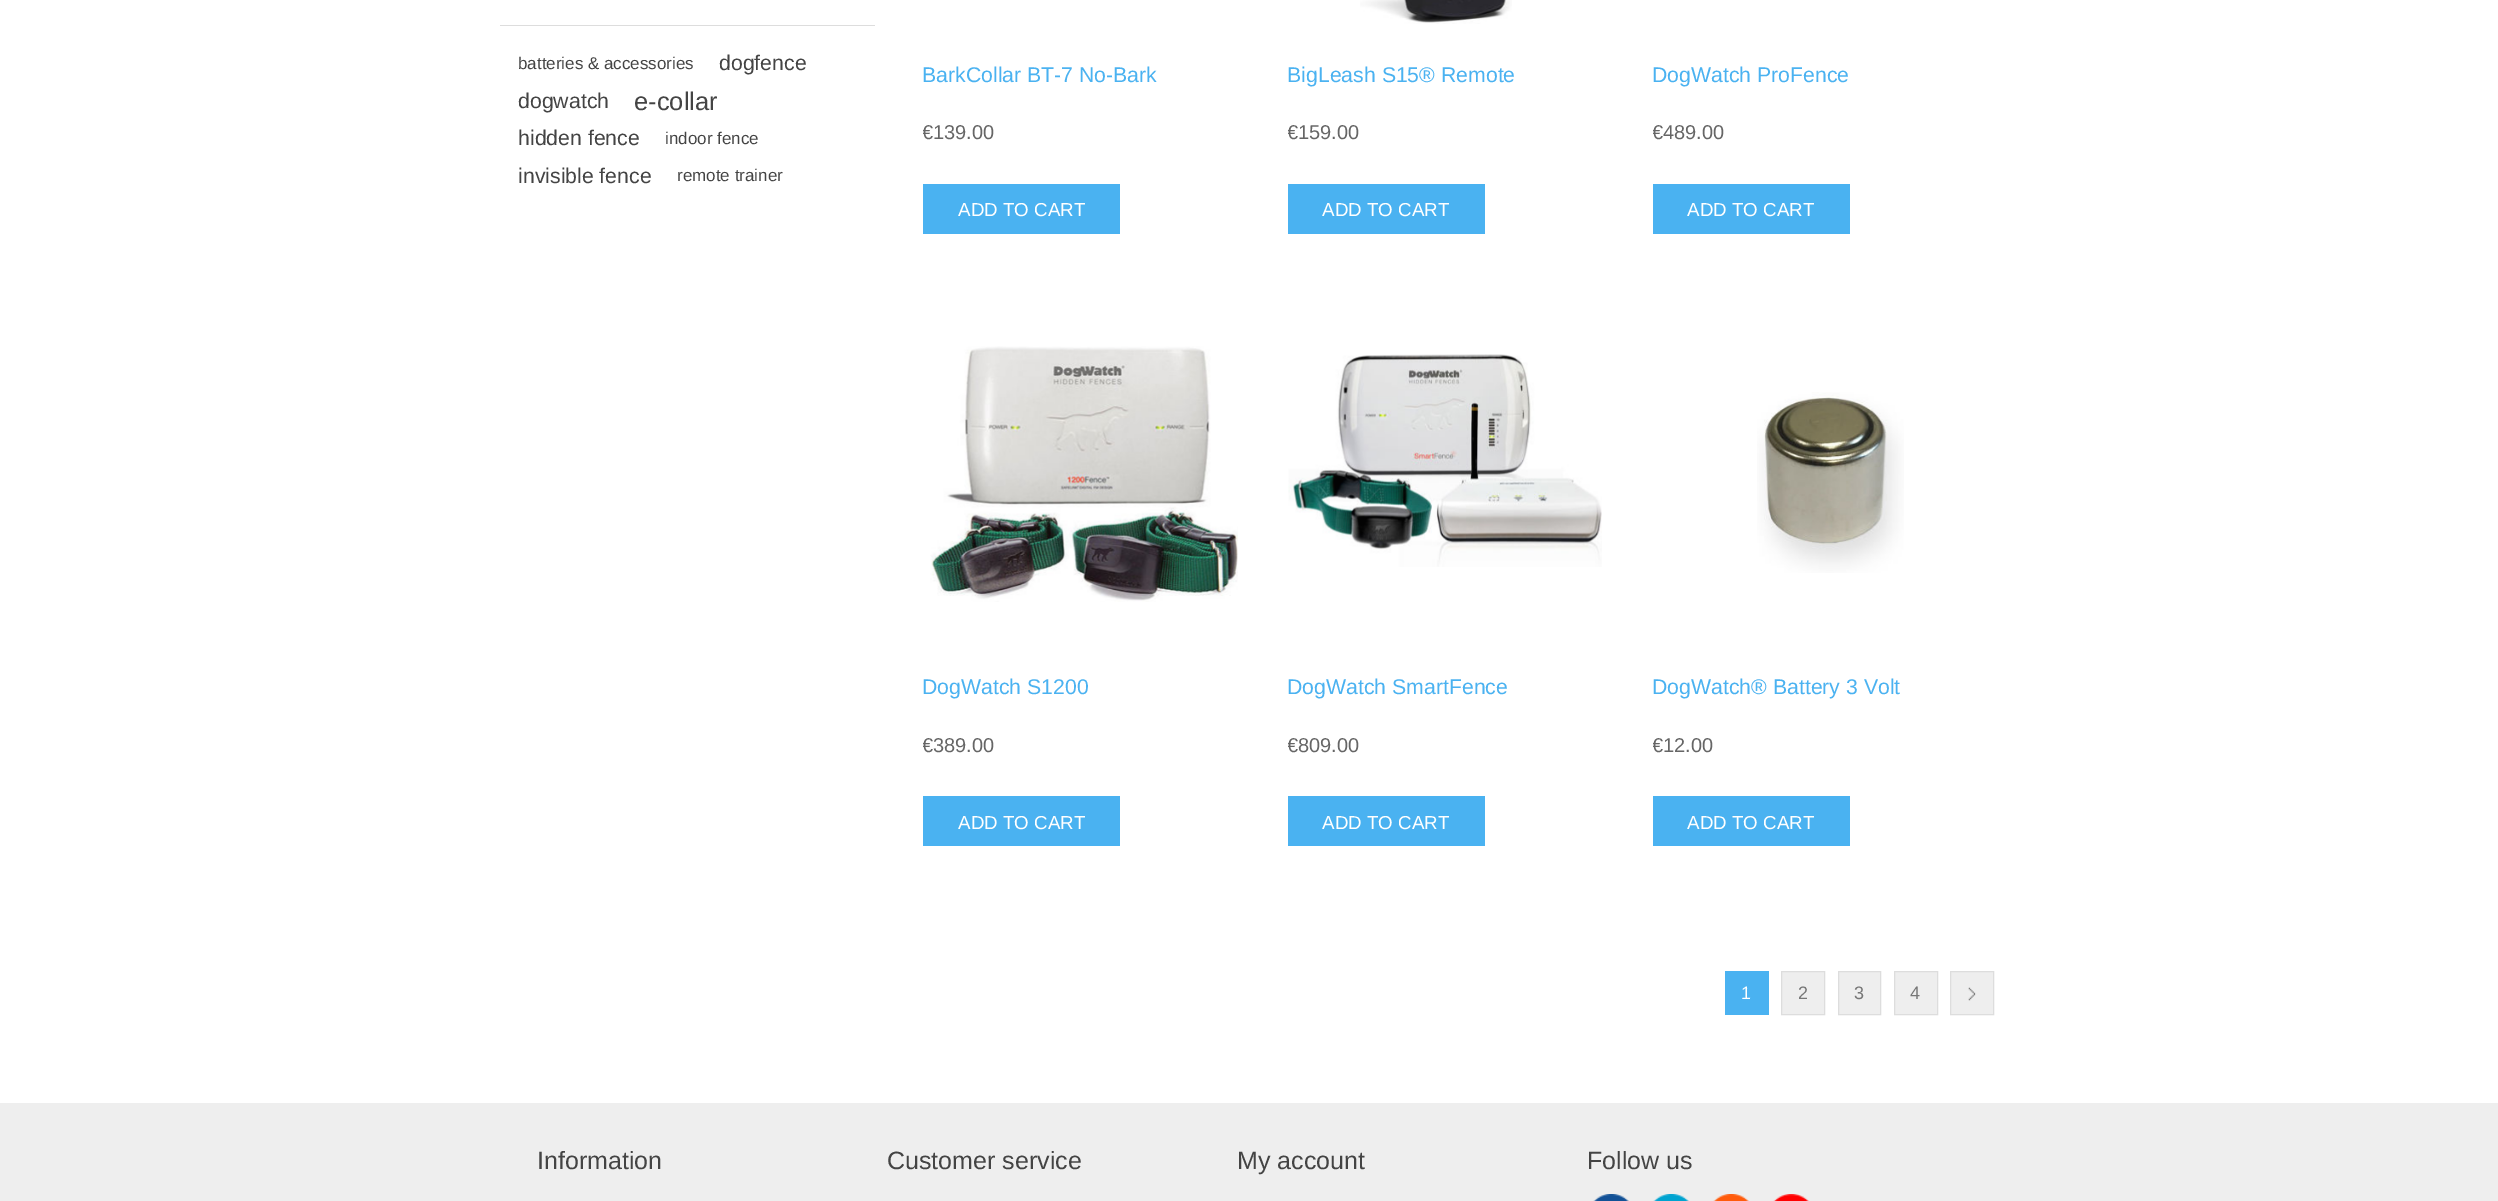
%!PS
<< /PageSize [2498 1201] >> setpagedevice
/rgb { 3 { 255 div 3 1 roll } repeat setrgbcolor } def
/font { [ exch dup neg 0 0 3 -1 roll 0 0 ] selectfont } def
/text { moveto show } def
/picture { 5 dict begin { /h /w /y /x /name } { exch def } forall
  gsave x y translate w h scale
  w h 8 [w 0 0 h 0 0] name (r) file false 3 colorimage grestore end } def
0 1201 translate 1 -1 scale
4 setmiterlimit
255 255 255 rgb
0 0 2498 1201 rectfill
221 221 221 rgb
500 25 375 1 rectfill
74 178 241 rgb
923 184 197 50 rectfill
(img_01.rgb) 1360 0 152 24 picture
1288 184 197 50 rectfill
1653 184 197 50 rectfill
(img_02.rgb) 930 346 308 256 picture
923 796 197 50 rectfill
(img_03.rgb) 1288 354 314 213 picture
1288 796 197 50 rectfill
(img_04.rgb) 1757 392 147 181 picture
1653 796 197 50 rectfill
1725 971 44 44 rectfill
238 238 238 rgb
1781.5 971.5 moveto 43 0 rlineto 0 43 rlineto -43 0 rlineto closepath gsave fill grestore
221 221 221 rgb
stroke
238 238 238 rgb
1838.5 971.5 moveto 42 0 rlineto 0 43 rlineto -42 0 rlineto closepath gsave fill grestore
221 221 221 rgb
stroke
238 238 238 rgb
1894.5 971.5 moveto 43 0 rlineto 0 43 rlineto -43 0 rlineto closepath gsave fill grestore
221 221 221 rgb
stroke
238 238 238 rgb
1951 972 42 42 rectfill
(img_05.rgb) 1968 987 8 14 picture
221 221 221 rgb
1950.5 971.5 43 43 rectstroke
238 238 238 rgb
0 1103 2498 98 rectfill
(img_06.rgb) 1593 1194 36 7 picture
(img_07.rgb) 1653 1194 36 7 picture
(img_08.rgb) 1713 1194 36 7 picture
(img_09.rgb) 1773 1194 36 7 picture
/LiberationSans-Regular 17 font
68 68 68 rgb
(batteries & accessories) 518 69 text
/LiberationSans-Regular 21.25 font
(dogfence) 719 70 text
(dogwatch) 518 108 text
/LiberationSans-Regular 25.5 font
(e-collar) 634 110 text
/LiberationSans-Regular 21.25 font
(hidden fence) 518 145 text
/LiberationSans-Regular 17 font
(indoor fence) 665 144 text
/LiberationSans-Regular 21.25 font
(invisible fence) 518 183 text
/LiberationSans-Regular 17 font
(remote trainer) 677 181 text
/LiberationSans-Regular 21.25 font
74 178 241 rgb
(BarkCollar BT-7 No-Bark) 922 82 text
gsave
923 121 328 50 rectclip
/LiberationSans-Regular 20 font
102 102 102 rgb
(€139.00) 922 139 text
grestore
/LiberationSans-Regular 18.75 font
255 255 255 rgb
(ADD TO CART) 958 216 text
/LiberationSans-Regular 21.25 font
74 178 241 rgb
(BigLeash S15® Remote) 1287 82 text
gsave
1288 121 328 50 rectclip
/LiberationSans-Regular 20 font
102 102 102 rgb
(€159.00) 1287 139 text
grestore
/LiberationSans-Regular 18.75 font
255 255 255 rgb
(ADD TO CART) 1322 216 text
/LiberationSans-Regular 21.25 font
74 178 241 rgb
(DogWatch ProFence) 1652 82 text
gsave
1653 121 328 50 rectclip
/LiberationSans-Regular 20 font
102 102 102 rgb
(€489.00) 1652 139 text
grestore
/LiberationSans-Regular 18.75 font
255 255 255 rgb
(ADD TO CART) 1687 216 text
/LiberationSans-Regular 21.25 font
74 178 241 rgb
(DogWatch S1200) 922 694 text
gsave
923 734 328 50 rectclip
/LiberationSans-Regular 20 font
102 102 102 rgb
(€389.00) 922 752 text
grestore
/LiberationSans-Regular 18.75 font
255 255 255 rgb
(ADD TO CART) 958 829 text
/LiberationSans-Regular 21.25 font
74 178 241 rgb
(DogWatch SmartFence) 1287 694 text
gsave
1288 734 328 50 rectclip
/LiberationSans-Regular 20 font
102 102 102 rgb
(€809.00) 1287 752 text
grestore
/LiberationSans-Regular 18.75 font
255 255 255 rgb
(ADD TO CART) 1322 829 text
/LiberationSans-Regular 21.25 font
74 178 241 rgb
(DogWatch® Battery 3 Volt) 1652 694 text
gsave
1653 734 328 50 rectclip
/LiberationSans-Regular 20 font
102 102 102 rgb
(€12.00) 1652 752 text
grestore
/LiberationSans-Regular 18.75 font
255 255 255 rgb
(ADD TO CART) 1687 829 text
/LiberationSans-Regular 18 font
(1) 1741 999 text
119 119 119 rgb
(2) 1798 999 text
(3) 1854 999 text
(4) 1910 999 text
/LiberationSans-Regular 25 font
68 68 68 rgb
(Information) 537 1169 text
(Customer service) 887 1169 text
(My account) 1237 1169 text
(Follow us) 1587 1169 text
showpage
